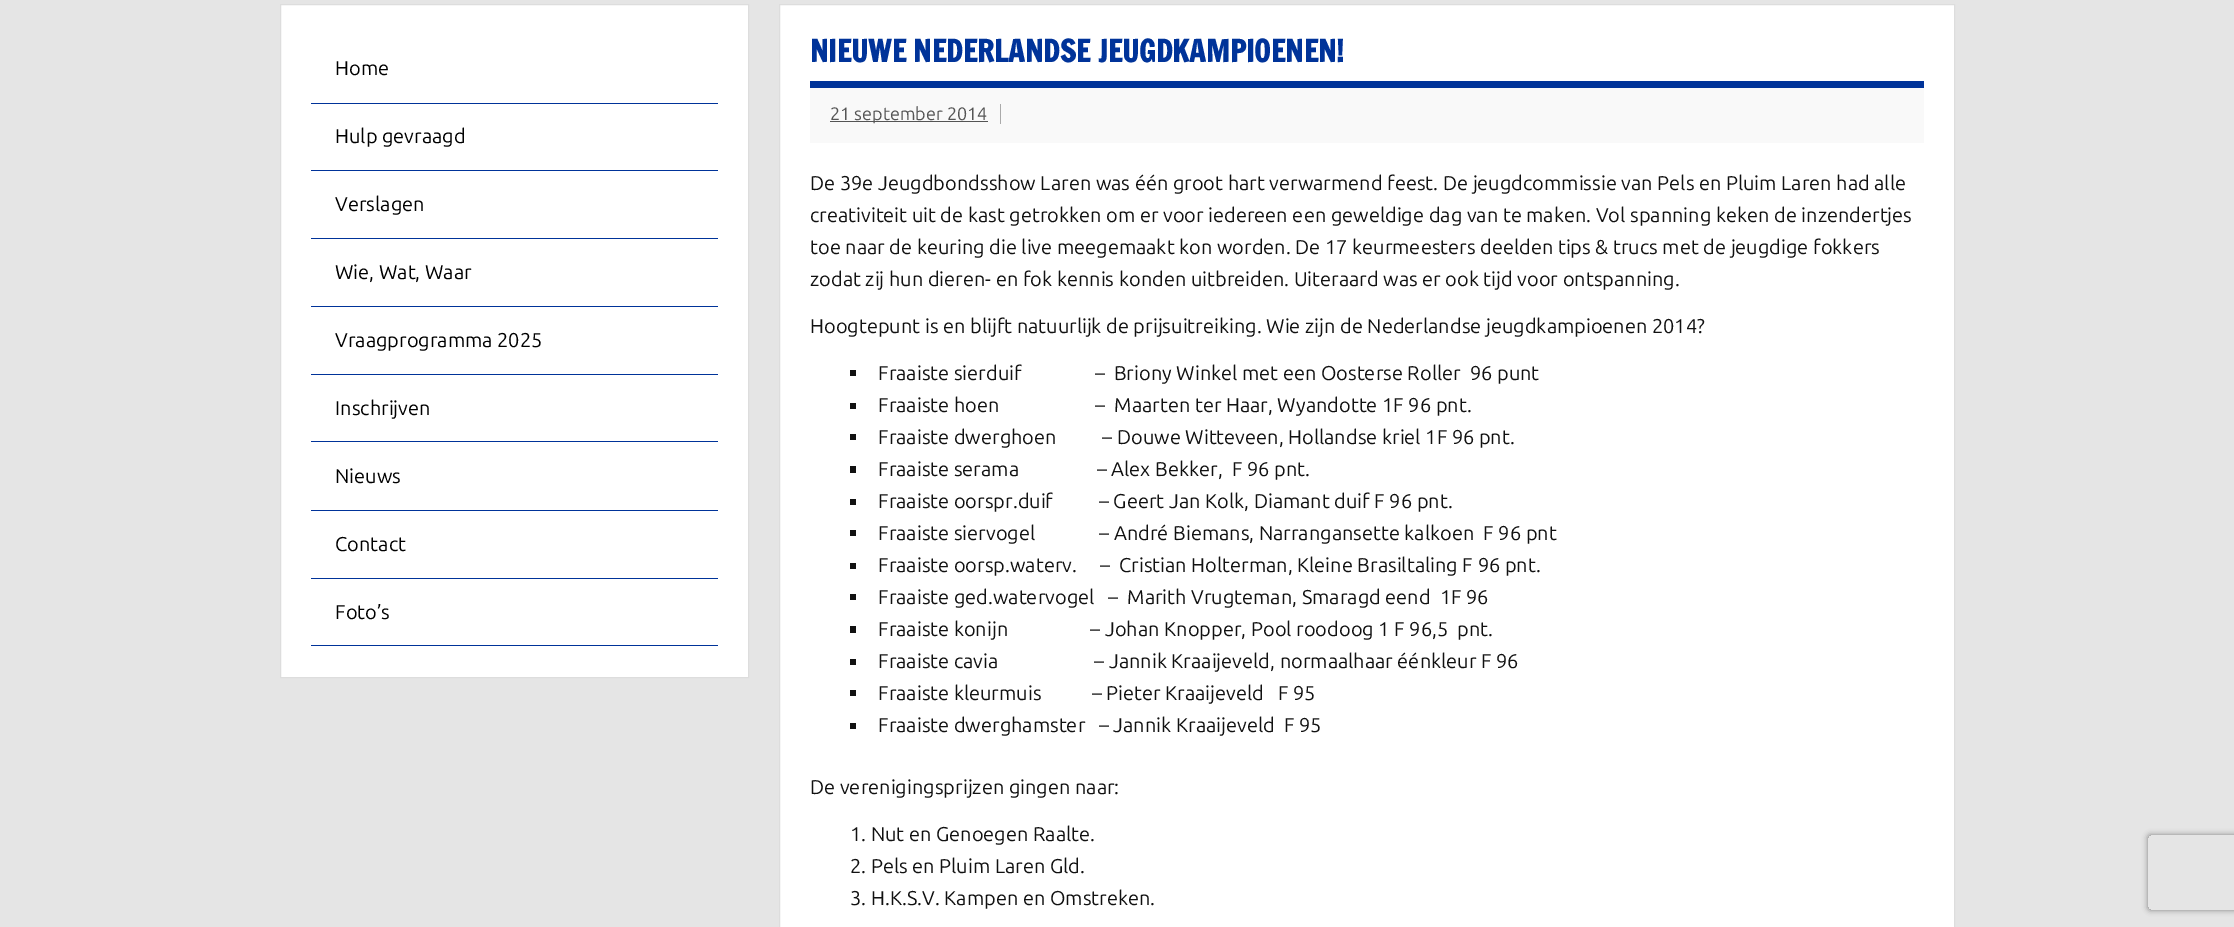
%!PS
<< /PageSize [2234 927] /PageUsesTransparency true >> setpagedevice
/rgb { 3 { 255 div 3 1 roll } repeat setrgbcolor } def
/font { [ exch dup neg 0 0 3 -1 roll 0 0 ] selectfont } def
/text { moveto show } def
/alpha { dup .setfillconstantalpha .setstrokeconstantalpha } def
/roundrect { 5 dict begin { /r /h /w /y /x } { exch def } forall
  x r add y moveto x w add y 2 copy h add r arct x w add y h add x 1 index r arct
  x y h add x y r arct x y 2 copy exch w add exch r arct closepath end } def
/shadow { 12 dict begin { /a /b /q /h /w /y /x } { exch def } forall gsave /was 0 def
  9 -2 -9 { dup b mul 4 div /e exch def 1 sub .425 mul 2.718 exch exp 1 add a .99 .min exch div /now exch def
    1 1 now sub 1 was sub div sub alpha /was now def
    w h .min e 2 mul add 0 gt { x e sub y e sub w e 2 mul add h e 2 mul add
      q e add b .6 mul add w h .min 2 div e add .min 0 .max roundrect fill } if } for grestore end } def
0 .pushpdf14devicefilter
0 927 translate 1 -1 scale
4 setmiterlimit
229 229 229 rgb
0 0 2234 927 rectfill
255 255 255 rgb
280.5 4.5 moveto 468 0 rlineto 0 673 rlineto -468 0 rlineto closepath gsave fill grestore
221 221 221 rgb
stroke
0 51 153 rgb
311 103 407 1 rectfill
311 170 407 1 rectfill
311 238 407 1 rectfill
311 306 407 1 rectfill
311 374 407 1 rectfill
311 441 407 1 rectfill
311 510 407 1 rectfill
311 578 407 1 rectfill
311 645 407 1 rectfill
255 255 255 rgb
779.5 4.5 moveto 1175 0 rlineto 0 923 rlineto -1175 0 rlineto closepath gsave fill grestore
221 221 221 rgb
stroke
0 51 153 rgb
810 81 1114 7 rectfill
249 249 249 rgb
810 88 1114 55 rectfill
170 170 170 rgb
1000 104 1 20 rectfill
85 85 85 rgb
830 121 158 1 rectfill
17 17 17 rgb
850 370 6 6 rectfill
850 403 6 6 rectfill
850 434 6 6 rectfill
850 466 6 7 rectfill
850 499 6 6 rectfill
850 530 6 6 rectfill
850 563 6 6 rectfill
850 594 6 6 rectfill
850 626 6 7 rectfill
850 659 6 6 rectfill
850 690 6 6 rectfill
850 723 6 6 rectfill
gsave
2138 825 moveto 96 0 rlineto 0 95 rlineto -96 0 rlineto closepath 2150.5 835 moveto 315 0 rlineto 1.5 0 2.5 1 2.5 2.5 rcurveto 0 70 rlineto 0 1.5 -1 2.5 -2.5 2.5 rcurveto -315 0 rlineto -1.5 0 -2.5 -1 -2.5 -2.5 rcurveto 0 -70 rlineto 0 -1.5 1 -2.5 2.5 -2.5 rcurveto closepath eoclip newpath
128 128 128 rgb
2148 835 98 75 2.5 3 1 shadow
grestore
/Ubuntu-Regular 20 font
0 0 0 rgb
(Home) 335 75 text
(Hulp gevraagd) 335 143 text
(Verslagen) 335 211 text
(Wie, Wat, Waar) 335 279 text
(Vraagprogramma 2025) 335 347 text
(Inschrijven) 335 415 text
(Nieuws) 335 483 text
(Contact) 335 551 text
(Foto’s) 335 619 text
/FrancoisOne-Bold 30 font
0 51 153 rgb
(NIEUWE NEDERLANDSE JEUGDKAMPIOENEN!) 810 62 text
/Ubuntu-Regular 18 font
85 85 85 rgb
(21 september 2014) 830 120 text
/Ubuntu-Regular 20 font
17 17 17 rgb
(De 39e Jeugdbondsshow Laren was één groot hart verwarmend feest. De jeugdcommissie van Pels en Pluim Laren had alle) 810 190 text
(creativiteit uit de kast getrokken om er voor iedereen een geweldige dag van te maken. Vol spanning keken de inzendertjes) 810 222 text
(toe naar de keuring die live meegemaakt kon worden. De 17 keurmeesters deelden tips & trucs met de jeugdige fokkers) 810 254 text
(zodat zij hun dieren- en fok kennis konden uitbreiden. Uiteraard was er ook tijd voor ontspanning.) 810 286 text
(Hoogtepunt is en blijft natuurlijk de prijsuitreiking. Wie zijn de Nederlandse jeugdkampioenen 2014?) 810 333 text
(Fraaiste sierduif                –  Briony Winkel met een Oosterse Roller  96 punt) 878 380 text
(Fraaiste hoen                     –  Maarten ter Haar, Wyandotte 1F 96 pnt.) 878 412 text
(Fraaiste dwerghoen          – Douwe Witteveen, Hollandse kriel 1F 96 pnt.) 878 444 text
(Fraaiste serama                 – Alex Bekker,  F 96 pnt.) 878 476 text
(Fraaiste oorspr.duif          – Geert Jan Kolk, Diamant duif F 96 pnt.) 878 508 text
(Fraaiste siervogel              – André Biemans, Narrangansette kalkoen  F 96 pnt) 878 540 text
(Fraaiste oorsp.waterv.     –  Cristian Holterman, Kleine Brasiltaling F 96 pnt.) 878 572 text
(Fraaiste ged.watervogel   –  Marith Vrugteman, Smaragd eend  1F 96) 878 604 text
(Fraaiste konijn                  – Johan Knopper, Pool roodoog 1 F 96,5  pnt.) 878 636 text
(Fraaiste cavia                     – Jannik Kraaijeveld, normaalhaar éénkleur F 96) 878 668 text
(Fraaiste kleurmuis           – Pieter Kraaijeveld   F 95) 878 700 text
(Fraaiste dwerghamster   – Jannik Kraaijeveld  F 95) 878 732 text
(De verenigingsprijzen gingen naar:) 810 794 text
(1. Nut en Genoegen Raalte.) 850 841 text
(2. Pels en Pluim Laren Gld.) 850 873 text
(3. H.K.S.V. Kampen en Omstreken.) 850 905 text
.poppdf14devicefilter showpage
